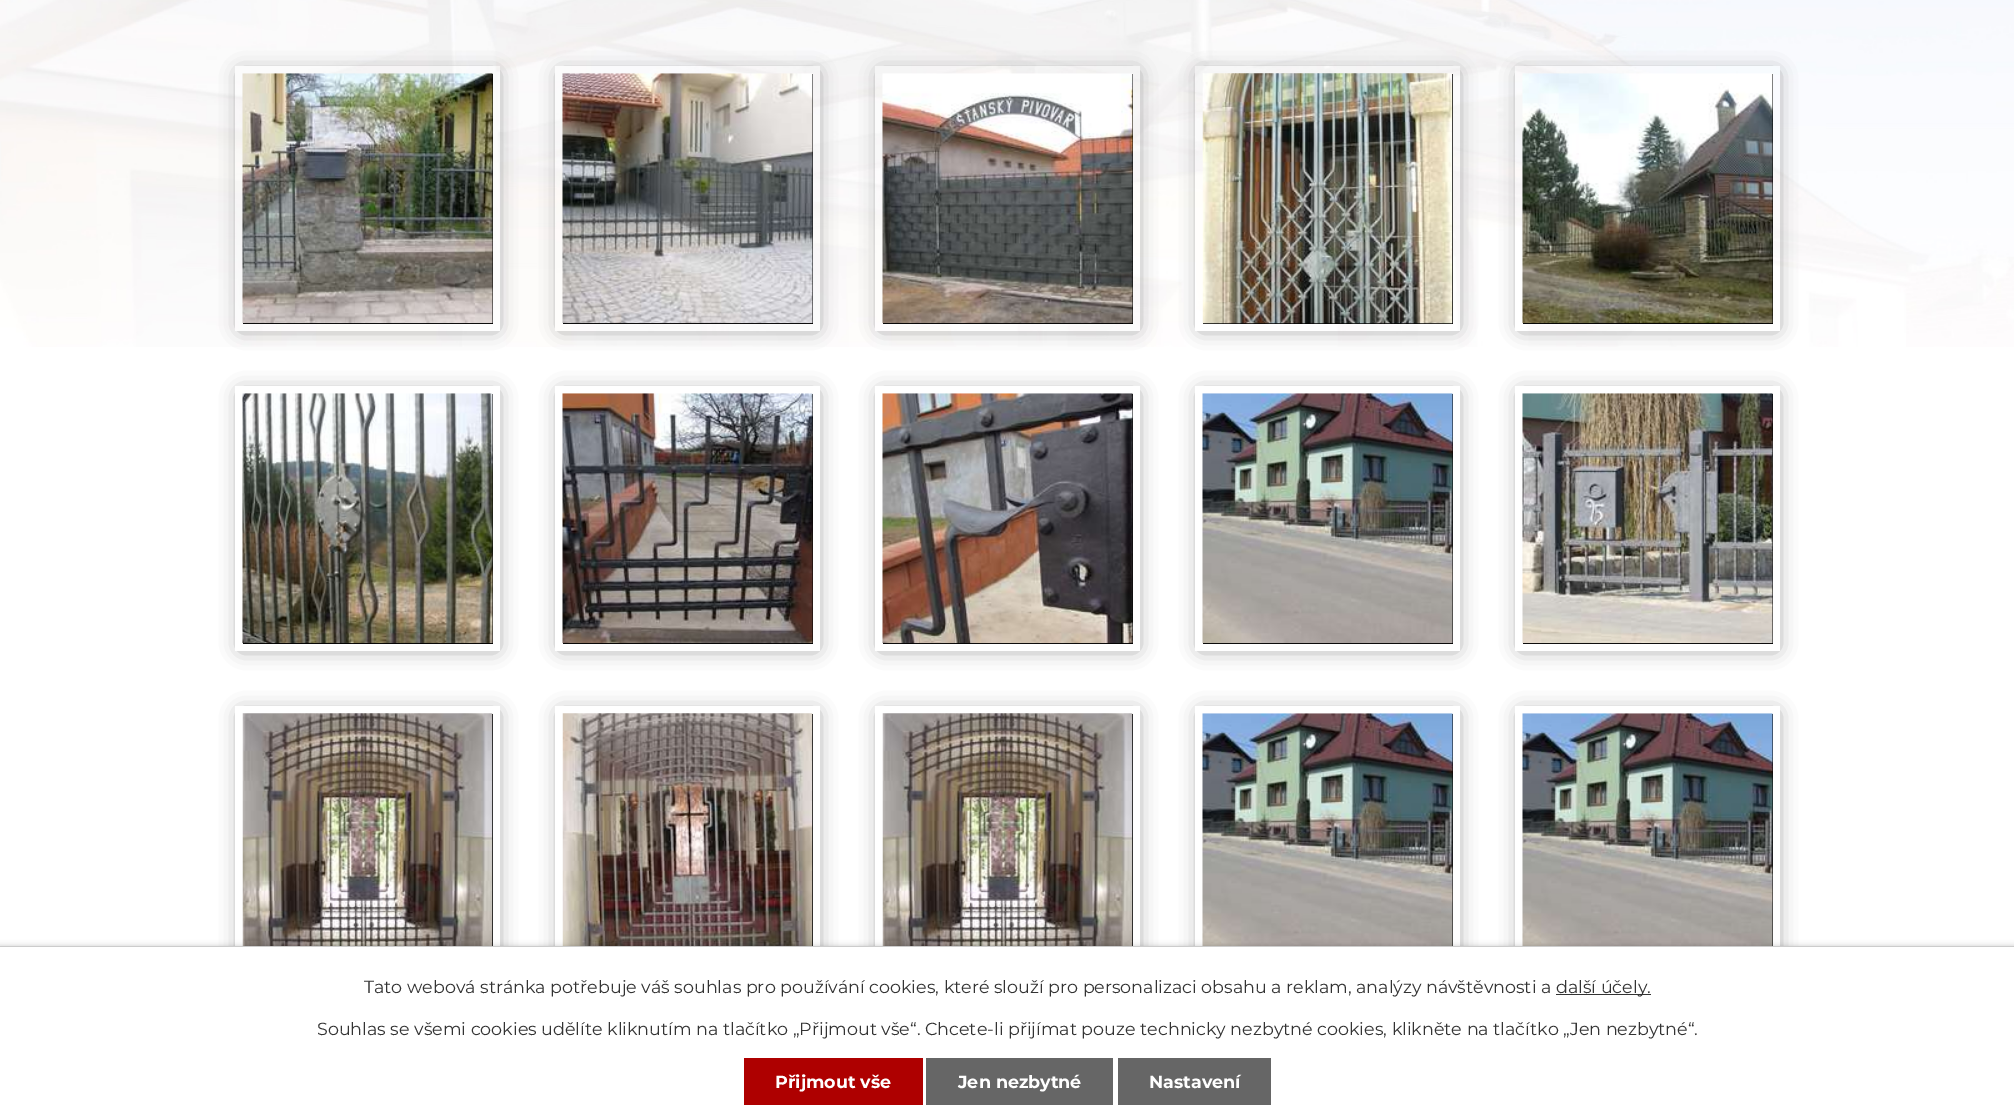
%!PS
<< /PageSize [2014 1117] /PageUsesTransparency true >> setpagedevice
/rgb { 3 { 255 div 3 1 roll } repeat setrgbcolor } def
/font { [ exch dup neg 0 0 3 -1 roll 0 0 ] selectfont } def
/text { moveto show } def
/alpha { dup .setfillconstantalpha .setstrokeconstantalpha } def
/roundrect { 5 dict begin { /r /h /w /y /x } { exch def } forall
  x r add y moveto x w add y 2 copy h add r arct x w add y h add x 1 index r arct
  x y h add x y r arct x y 2 copy exch w add exch r arct closepath end } def
/shadow { 12 dict begin { /a /b /q /h /w /y /x } { exch def } forall gsave /was 0 def
  9 -2 -9 { dup b mul 4 div /e exch def 1 sub .425 mul 2.718 exch exp 1 add a .99 .min exch div /now exch def
    1 1 now sub 1 was sub div sub alpha /was now def
    w h .min e 2 mul add 0 gt { x e sub y e sub w e 2 mul add h e 2 mul add
      q e add b .6 mul add w h .min 2 div e add .min 0 .max roundrect fill } if } for grestore end } def
/picture { 5 dict begin { /h /w /y /x /name } { exch def } forall
  gsave x y translate w h scale
  w h 8 [w 0 0 h 0 0] name (r) file false 3 colorimage grestore end } def
0 .pushpdf14devicefilter
0 1117 translate 1 -1 scale
4 setmiterlimit
255 255 255 rgb
0 0 2014 1117 rectfill
(img_01.rgb) 0 0 2014 347 picture
gsave
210 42 moveto 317 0 rlineto 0 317 rlineto -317 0 rlineto closepath 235 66 moveto 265 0 rlineto 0 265 rlineto -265 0 rlineto closepath eoclip newpath
136 136 136 rgb
241 73 255 255 0 10 1 shadow
grestore
0 0 0 rgb
243 74 250 250 rectfill
(img_02.rgb) 242 73 251 251 picture
gsave
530 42 moveto 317 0 rlineto 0 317 rlineto -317 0 rlineto closepath 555 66 moveto 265 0 rlineto 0 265 rlineto -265 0 rlineto closepath eoclip newpath
136 136 136 rgb
561 73 255 255 0 10 1 shadow
grestore
563 74 250 250 rectfill
(img_03.rgb) 562 73 251 251 picture
gsave
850 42 moveto 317 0 rlineto 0 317 rlineto -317 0 rlineto closepath 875 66 moveto 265 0 rlineto 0 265 rlineto -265 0 rlineto closepath eoclip newpath
136 136 136 rgb
881 73 255 255 0 10 1 shadow
grestore
883 74 250 250 rectfill
(img_04.rgb) 882 73 251 251 picture
gsave
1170 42 moveto 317 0 rlineto 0 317 rlineto -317 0 rlineto closepath 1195 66 moveto 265 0 rlineto 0 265 rlineto -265 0 rlineto closepath eoclip newpath
136 136 136 rgb
1201 73 255 255 0 10 1 shadow
grestore
1203 74 250 250 rectfill
(img_05.rgb) 1202 73 251 251 picture
gsave
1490 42 moveto 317 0 rlineto 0 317 rlineto -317 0 rlineto closepath 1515 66 moveto 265 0 rlineto 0 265 rlineto -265 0 rlineto closepath eoclip newpath
136 136 136 rgb
1521 73 255 255 0 10 1 shadow
grestore
1523 74 250 250 rectfill
(img_06.rgb) 1522 73 251 251 picture
gsave
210 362 moveto 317 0 rlineto 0 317 rlineto -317 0 rlineto closepath 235 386 moveto 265 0 rlineto 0 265 rlineto -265 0 rlineto closepath eoclip newpath
136 136 136 rgb
241 393 255 255 0 10 1 shadow
grestore
243 394 250 250 rectfill
(img_07.rgb) 242 393 251 251 picture
gsave
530 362 moveto 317 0 rlineto 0 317 rlineto -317 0 rlineto closepath 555 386 moveto 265 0 rlineto 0 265 rlineto -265 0 rlineto closepath eoclip newpath
136 136 136 rgb
561 393 255 255 0 10 1 shadow
grestore
563 394 250 250 rectfill
(img_08.rgb) 562 393 251 251 picture
gsave
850 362 moveto 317 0 rlineto 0 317 rlineto -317 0 rlineto closepath 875 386 moveto 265 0 rlineto 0 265 rlineto -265 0 rlineto closepath eoclip newpath
136 136 136 rgb
881 393 255 255 0 10 1 shadow
grestore
883 394 250 250 rectfill
(img_09.rgb) 882 393 251 251 picture
gsave
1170 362 moveto 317 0 rlineto 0 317 rlineto -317 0 rlineto closepath 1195 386 moveto 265 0 rlineto 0 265 rlineto -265 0 rlineto closepath eoclip newpath
136 136 136 rgb
1201 393 255 255 0 10 1 shadow
grestore
1203 394 250 250 rectfill
(img_10.rgb) 1202 393 251 251 picture
gsave
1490 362 moveto 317 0 rlineto 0 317 rlineto -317 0 rlineto closepath 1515 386 moveto 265 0 rlineto 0 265 rlineto -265 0 rlineto closepath eoclip newpath
136 136 136 rgb
1521 393 255 255 0 10 1 shadow
grestore
1523 394 250 250 rectfill
(img_11.rgb) 1522 393 251 251 picture
gsave
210 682 moveto 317 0 rlineto 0 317 rlineto -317 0 rlineto closepath 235 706 moveto 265 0 rlineto 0 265 rlineto -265 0 rlineto closepath eoclip newpath
136 136 136 rgb
241 713 255 255 0 10 1 shadow
grestore
492 714 1 232 rectfill
(img_12.rgb) 242 713 251 233 picture
gsave
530 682 moveto 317 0 rlineto 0 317 rlineto -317 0 rlineto closepath 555 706 moveto 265 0 rlineto 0 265 rlineto -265 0 rlineto closepath eoclip newpath
136 136 136 rgb
561 713 255 255 0 10 1 shadow
grestore
812 714 1 232 rectfill
(img_13.rgb) 562 713 251 233 picture
gsave
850 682 moveto 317 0 rlineto 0 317 rlineto -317 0 rlineto closepath 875 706 moveto 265 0 rlineto 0 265 rlineto -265 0 rlineto closepath eoclip newpath
136 136 136 rgb
881 713 255 255 0 10 1 shadow
grestore
1132 714 1 232 rectfill
(img_14.rgb) 882 713 251 233 picture
gsave
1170 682 moveto 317 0 rlineto 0 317 rlineto -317 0 rlineto closepath 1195 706 moveto 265 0 rlineto 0 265 rlineto -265 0 rlineto closepath eoclip newpath
136 136 136 rgb
1201 713 255 255 0 10 1 shadow
grestore
1452 714 1 232 rectfill
(img_15.rgb) 1202 713 251 233 picture
gsave
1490 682 moveto 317 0 rlineto 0 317 rlineto -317 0 rlineto closepath 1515 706 moveto 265 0 rlineto 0 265 rlineto -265 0 rlineto closepath eoclip newpath
136 136 136 rgb
1521 713 255 255 0 10 1 shadow
grestore
1772 714 1 232 rectfill
(img_16.rgb) 1522 713 251 233 picture
0 946 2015 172 0 3 0.2 shadow
255 255 255 rgb
0 947 2014 170 rectfill
204 204 204 rgb
0 946 2014 1 rectfill
51 51 51 rgb
1556 994 95 1 rectfill
174 0 0 rgb
744 1058 179 47 rectfill
102 102 102 rgb
926 1058 187 47 rectfill
1118 1058 153 47 rectfill
/Montserrat-Regular 17.5 font
51 51 51 rgb
(Tato webová stránka potřebuje váš souhlas pro používání cookies, které slouží pro personalizaci obsahu a reklam, analýzy návštěvnosti a) 364 993 text
(další účely.) 1556 993 text
(Souhlas se všemi cookies udělíte kliknutím na tlačítko „Přijmout vše“. Chcete-li přijímat pouze technicky nezbytné cookies, klikněte na tlačítko „Jen nezbytné“.) 317 1035 text
/Montserrat-Bold 17.5 font
255 255 255 rgb
(Přijmout vše) 775 1088 text
(Jen nezbytné) 958 1088 text
(Nastavení) 1149 1088 text
.poppdf14devicefilter showpage
